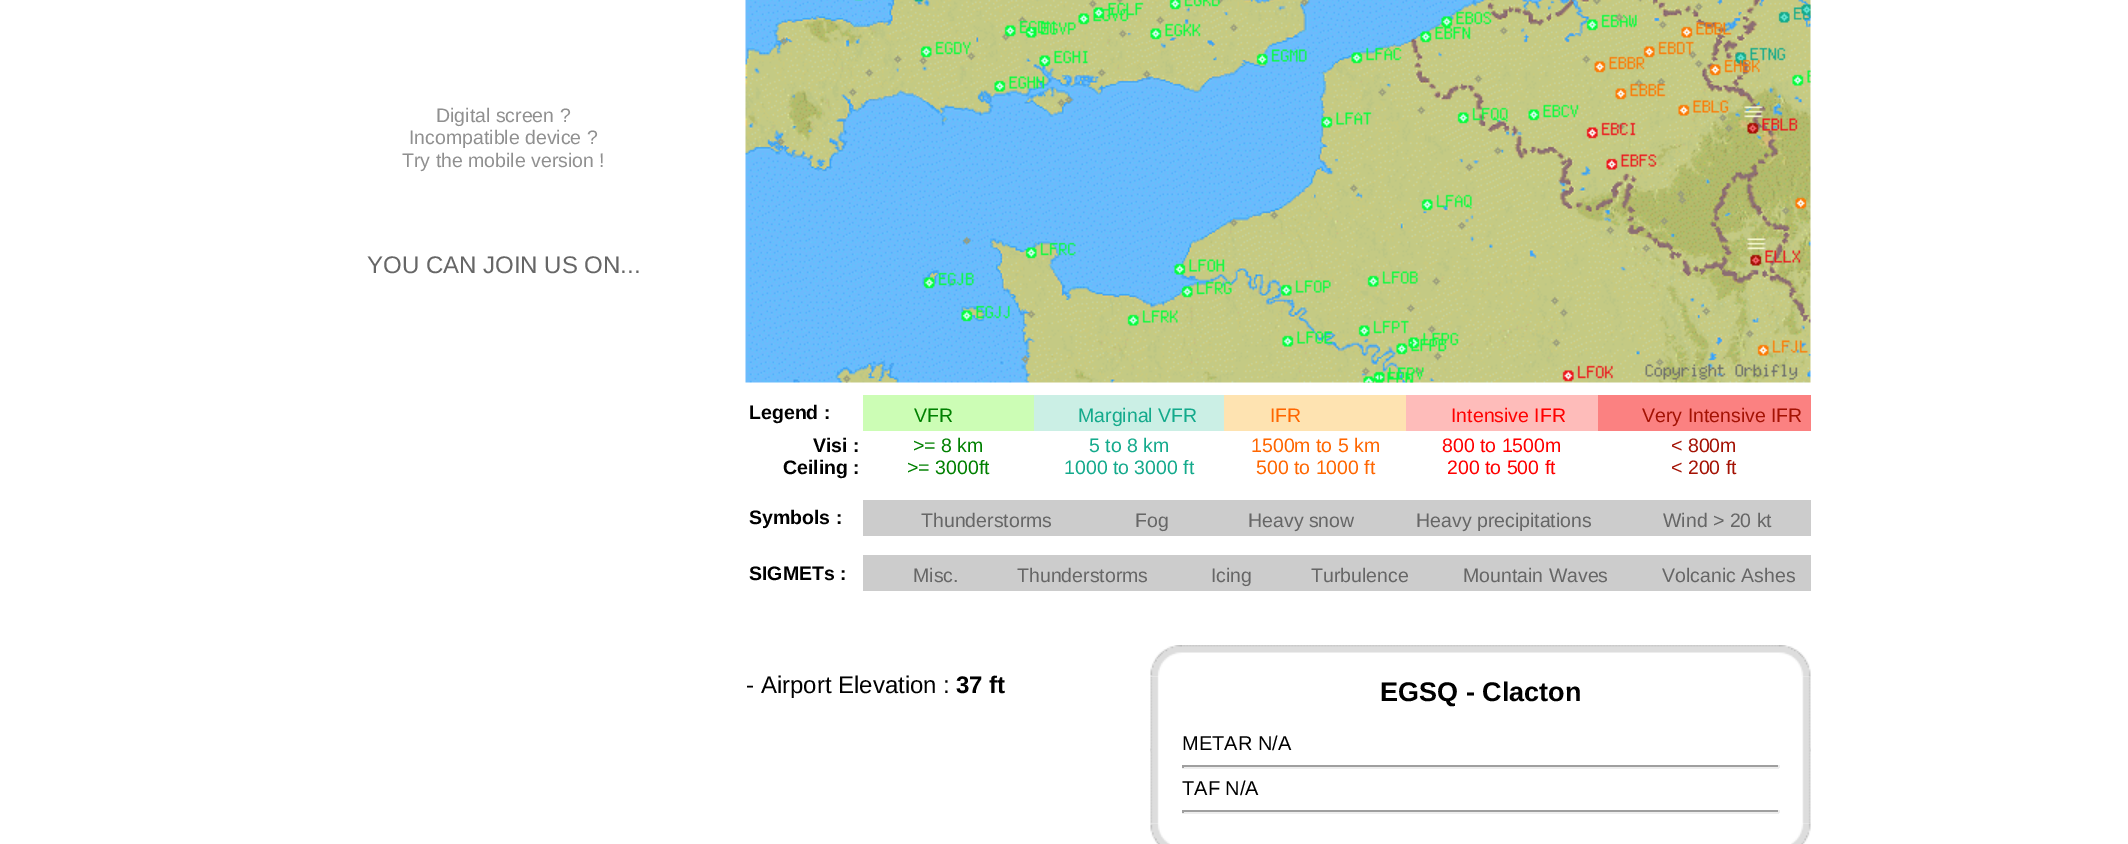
%!PS
<< /PageSize [2128 844] >> setpagedevice
/rgb { 3 { 255 div 3 1 roll } repeat setrgbcolor } def
/font { [ exch dup neg 0 0 3 -1 roll 0 0 ] selectfont } def
/text { moveto show } def
/picture { 5 dict begin { /h /w /y /x /name } { exch def } forall
  gsave x y translate w h scale
  w h 8 [w 0 0 h 0 0] name (r) file false 3 colorimage grestore end } def
0 844 translate 1 -1 scale
4 setmiterlimit
255 255 255 rgb
0 0 2128 844 rectfill
(img_01.rgb) 745 0 1066 383 picture
(img_02.rgb) 776 0 1035 383 picture
204 253 181 rgb
863 395 171 36 rectfill
203 239 229 rgb
1034 395 190 36 rectfill
254 227 177 rgb
1224 395 182 36 rectfill
254 188 186 rgb
1406 395 192 36 rectfill
251 129 129 rgb
1598 395 213 36 rectfill
204 204 204 rgb
863 500 948 36 rectfill
863 555 948 36 rectfill
(img_06.rgb) 1150 676 9 148 picture
(img_03.rgb) 1150 645 32 32 picture
(img_04.rgb) 1182 645 597 8 picture
(img_08.rgb) 1802 676 9 148 picture
(img_05.rgb) 1779 645 32 32 picture
(img_07.rgb) 1150 748 1 4 picture
159 159 159 rgb
1182 765 597 2 rectfill
238 238 238 rgb
1778 765 2 3 rectfill
1182 767 597 2 rectfill
159 159 159 rgb
1182 765 2 3 rectfill
1182 810 597 2 rectfill
238 238 238 rgb
1778 810 2 3 rectfill
1182 812 597 2 rectfill
159 159 159 rgb
1182 810 2 3 rectfill
(img_09.rgb) 1810 748 1 4 picture
(img_10.rgb) 1150 823 20 21 picture
(img_11.rgb) 1791 823 20 21 picture
/LiberationSans-Regular 19.5 font
144 144 144 rgb
(Digital screen ?) 436 122 text
(Incompatible device ?) 409 144 text
(Try the mobile version !) 402 167 text
/LiberationSans-Regular 24 font
102 102 102 rgb
(YOU CAN JOIN US ON...) 367 273 text
/LiberationSans-Bold 19.5 font
0 0 0 rgb
(Legend :) 749 419 text
/LiberationSans-Regular 19.5 font
0 128 0 rgb
(VFR) 914 422 text
20 170 140 rgb
(Marginal VFR) 1078 422 text
255 102 0 rgb
(IFR) 1270 422 text
255 0 0 rgb
(Intensive IFR) 1451 422 text
164 18 4 rgb
(Very Intensive IFR) 1642 422 text
/LiberationSans-Bold 19.5 font
0 0 0 rgb
(Visi :) 813 452 text
(Ceiling :) 783 474 text
/LiberationSans-Regular 19.5 font
0 128 0 rgb
(>= 8 km) 913 452 text
(>= 3000ft) 907 474 text
20 170 140 rgb
(5 to 8 km) 1089 452 text
(1000 to 3000 ft) 1064 474 text
255 102 0 rgb
(1500m to 5 km) 1251 452 text
(500 to 1000 ft) 1256 474 text
255 0 0 rgb
(800 to 1500m) 1442 452 text
(200 to 500 ft) 1447 474 text
164 18 4 rgb
(< 800m) 1671 452 text
(< 200 ft) 1671 474 text
/LiberationSans-Bold 19.5 font
0 0 0 rgb
(Symbols :) 749 524 text
/LiberationSans-Regular 19.5 font
102 102 102 rgb
(Thunderstorms) 921 527 text
(Fog) 1135 527 text
(Heavy snow) 1248 527 text
(Heavy precipitations) 1416 527 text
(Wind > 20 kt) 1663 527 text
/LiberationSans-Bold 19.5 font
0 0 0 rgb
(SIGMETs :) 749 580 text
/LiberationSans-Regular 19.5 font
102 102 102 rgb
(Misc.) 913 582 text
(Thunderstorms) 1017 582 text
(Icing) 1211 582 text
(Turbulence) 1311 582 text
(Mountain Waves) 1463 582 text
(Volcanic Ashes) 1662 582 text
/LiberationSans-Regular 24 font
0 0 0 rgb
(- Airport Elevation :) 746 693 text
/LiberationSans-Bold 24 font
(37 ft) 956 693 text
/LiberationSans-Bold 27 font
(EGSQ - Clacton) 1380 701 text
/LiberationSans-Regular 20 font
(METAR N/A) 1182 750 text
(TAF N/A) 1182 795 text
showpage
